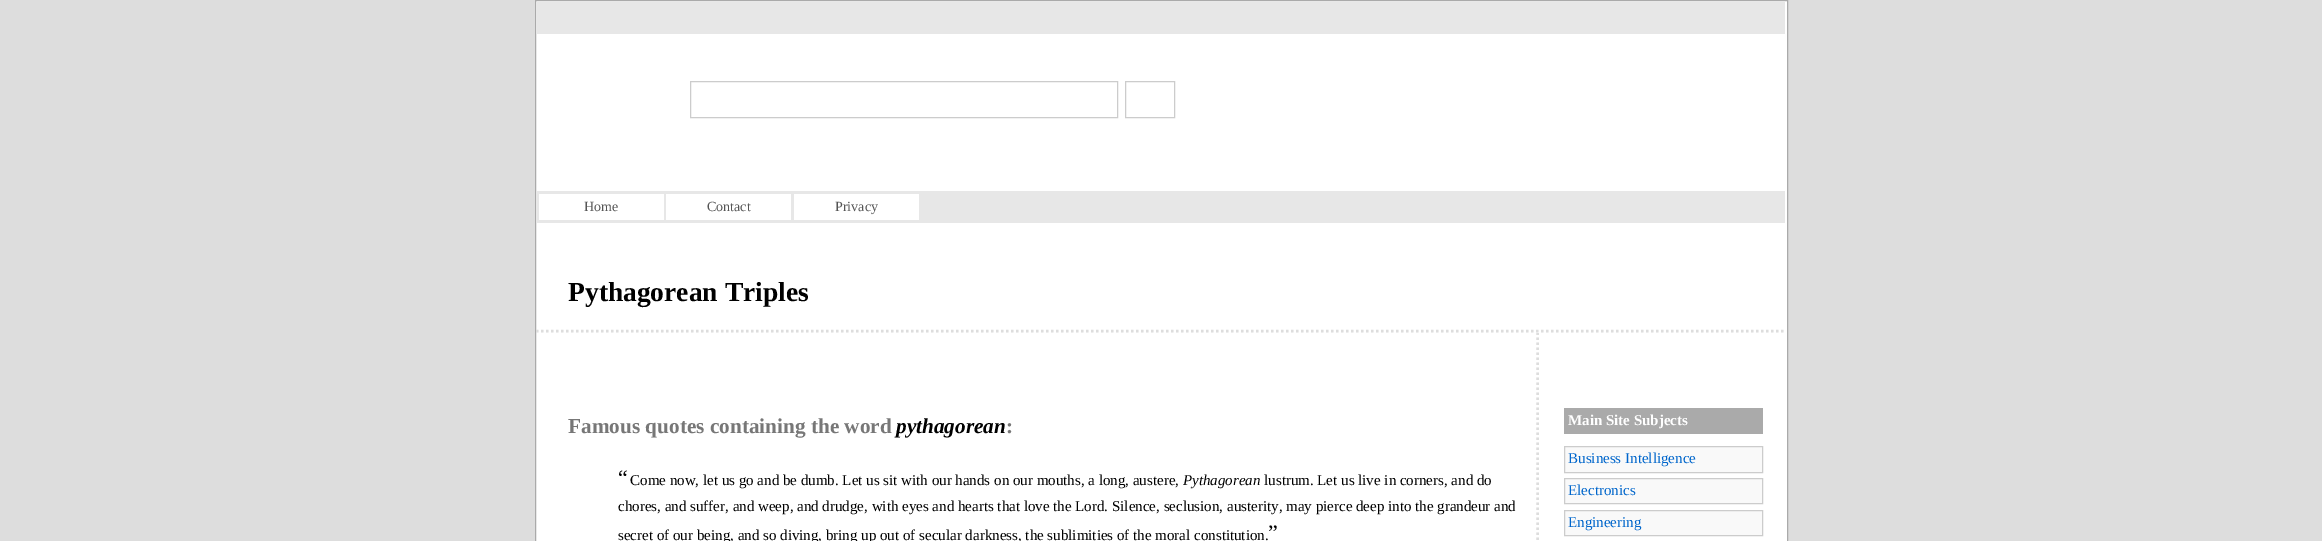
%!PS
<< /PageSize [2322 541] >> setpagedevice
/rgb { 3 { 255 div 3 1 roll } repeat setrgbcolor } def
/font { [ exch dup neg 0 0 3 -1 roll 0 0 ] selectfont } def
/text { moveto show } def
0 541 translate 1 -1 scale
4 setmiterlimit
221 221 221 rgb
0 0 2322 541 rectfill
255 255 255 rgb
535.5 0.5 moveto 1252 0 rlineto 0 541 rlineto -1252 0 rlineto closepath gsave fill grestore
170 170 170 rgb
stroke
231 231 231 rgb
537 2 1248 32 rectfill
204 204 204 rgb
690.5 81.5 427 36 rectstroke
1125.5 81.5 49 36 rectstroke
231 231 231 rgb
537 191 1248 32 rectfill
255 255 255 rgb
539 194 125 26 rectfill
666 194 125 26 rectfill
794 194 125 26 rectfill
221 221 221 rgb
2.5 setlinewidth
[2.5 2.5] 0 setdash
536 331 moveto 1250 0 rlineto stroke
gsave
536 333 1250 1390 rectclip
1537.5 332.5 moveto 0 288.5 rlineto stroke
grestore
170 170 170 rgb
1564 408 199 26 rectfill
249 249 249 rgb
1564.5 446.5 moveto 198 0 rlineto 0 26 rlineto -198 0 rlineto closepath gsave fill grestore
204 204 204 rgb
1 setlinewidth
[] 0 setdash
stroke
249 249 249 rgb
1564.5 478.5 moveto 198 0 rlineto 0 25 rlineto -198 0 rlineto closepath gsave fill grestore
204 204 204 rgb
stroke
249 249 249 rgb
1564.5 510.5 moveto 198 0 rlineto 0 25 rlineto -198 0 rlineto closepath gsave fill grestore
204 204 204 rgb
stroke
/LiberationSerif-Regular 14 font
85 85 85 rgb
(Home) 584 211 text
(Contact) 707 211 text
(Privacy) 835 211 text
/LiberationSerif-Bold 27.5 font
0 0 0 rgb
(Pythagorean Triples) 568 301 text
/LiberationSerif-Bold 21.25 font
119 119 119 rgb
(Famous quotes containing the word) 568 433 text
/LiberationSerif-BoldItalic 21.25 font
0 0 0 rgb
(pythagorean) 896 433 text
/LiberationSerif-Bold 21.25 font
119 119 119 rgb
(:) 1006 433 text
/LiberationSerif-Regular 22 font
0 0 0 rgb
(“) 618 485 text
/LiberationSerif-Regular 15 font
(Come now, let us go and be dumb. Let us sit with our hands on our mouths, a long, austere,) 630 485 text
/LiberationSerif-Italic 15 font
(Pythagorean) 1183 485 text
/LiberationSerif-Regular 15 font
(lustrum. Let us live in corners, and do) 1264 485 text
(chores, and suffer, and weep, and drudge, with eyes and hearts that love the Lord. Silence, seclusion, austerity, may pierce deep into the grandeur and) 618 511 text
/LiberationSerif-Regular 22 font
(”) 1268 540 text
/LiberationSerif-Regular 15 font
(secret of our being, and so diving, bring up out of secular darkness, the sublimities of the moral constitution.) 618 540 text
/LiberationSerif-Bold 15 font
255 255 255 rgb
(Main Site Subjects) 1568 425 text
/LiberationSerif-Regular 15 font
0 102 204 rgb
(Business Intelligence) 1568 463 text
(Electronics) 1568 495 text
(Engineering) 1568 527 text
showpage
